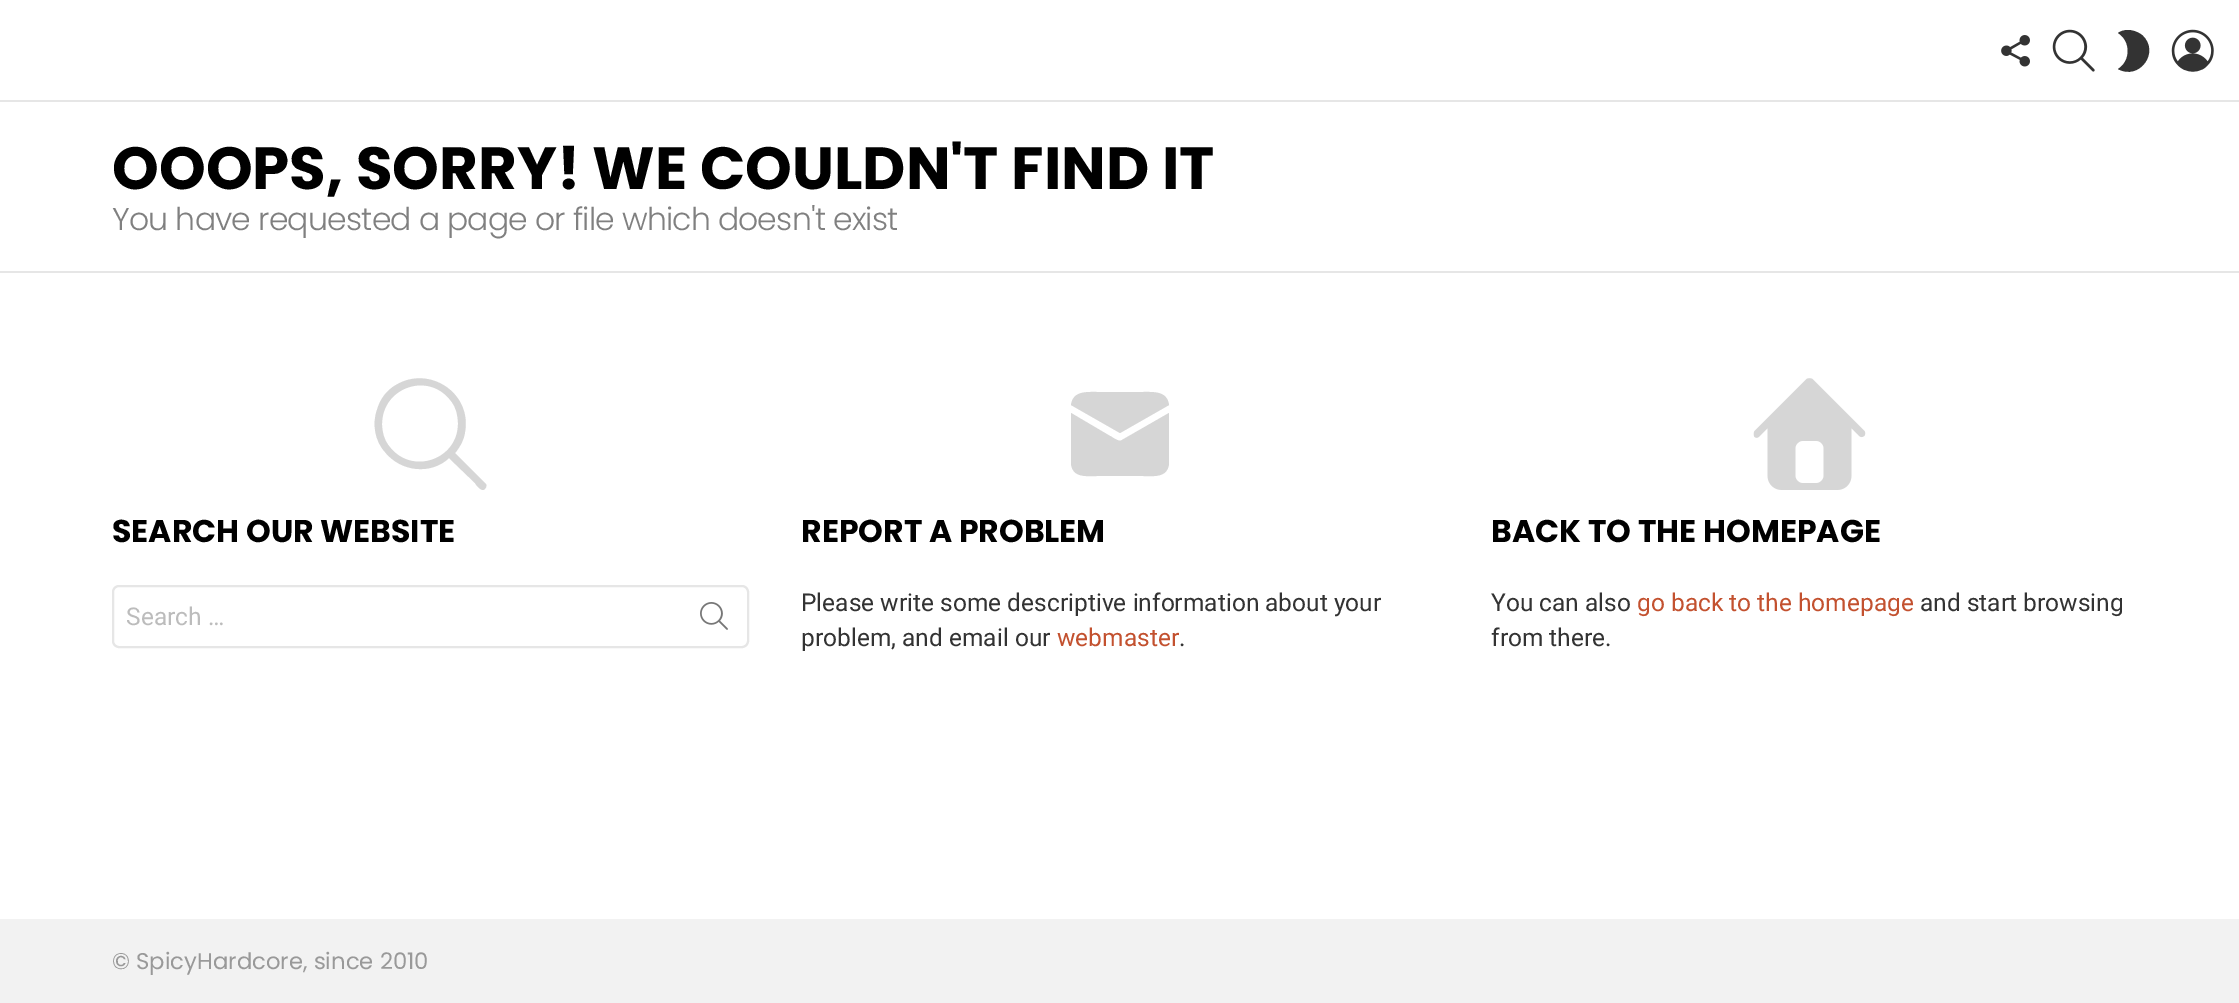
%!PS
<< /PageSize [2239 1003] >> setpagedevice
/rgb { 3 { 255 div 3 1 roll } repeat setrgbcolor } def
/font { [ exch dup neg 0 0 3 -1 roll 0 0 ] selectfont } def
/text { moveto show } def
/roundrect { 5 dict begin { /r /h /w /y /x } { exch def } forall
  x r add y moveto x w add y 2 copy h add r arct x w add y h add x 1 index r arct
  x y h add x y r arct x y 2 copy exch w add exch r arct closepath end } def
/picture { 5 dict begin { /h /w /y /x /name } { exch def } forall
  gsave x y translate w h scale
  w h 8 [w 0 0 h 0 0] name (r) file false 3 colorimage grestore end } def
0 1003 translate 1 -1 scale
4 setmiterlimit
255 255 255 rgb
0 0 2239 1003 rectfill
(img_01.rgb) 2001 35 29 32 picture
(img_02.rgb) 2052 29 43 43 picture
51 51 51 rgb
2128 30 moveto -4 0 -7 1 -10 3 rcurveto 13 8 13 28 0 36 rcurveto 21 12 43 -17 24 -34 rcurveto -4 -3 -9 -5 -14 -5 rcurveto closepath fill
(img_03.rgb) 2171 29 43 43 picture
230 230 230 rgb
0 100 2239 2 rectfill
0 271 2239 2 rectfill
214 214 214 rgb
486 484 moveto -31 -31 rlineto 5 -6 9 -13 10 -21 rcurveto 7 -39 -36 -67 -69 -47 rcurveto -9 5 -16 14 -19 25 rcurveto -5 14 -2 31 8 42 rcurveto 16 20 46 23 64 6 rcurveto 26 25 rlineto 1 2 5 7 8 7 rcurveto 3 -1 4 -4 3 -6 rcurveto closepath 382 424 moveto 0 -37 47 -53 69 -23 rcurveto 5 6 7 14 7 23 rcurveto 0 36 -47 52 -69 22 rcurveto -5 -6 -7 -14 -7 -22 rcurveto closepath fill
230 230 230 rgb
2 setlinewidth
113 586 635 61 6 roundrect stroke
(img_04.rgb) 700 602 28 28 picture
214 214 214 rgb
1120 433 moveto 49 -28 rlineto -2 -14 -15 -13 -26 -13 rcurveto -46 0 rlineto -11 0 -24 -1 -26 13 rcurveto closepath 1122 440 moveto -3 3 -11 -4 -12 -4 rcurveto -39 -23 rlineto 0 51 rlineto 2 14 15 12 26 12 rcurveto 46 0 rlineto 11 0 24 2 26 -12 rcurveto 0 -51 rlineto closepath fill
(img_05.rgb) 1753 378 113 112 picture
242 242 242 rgb
0 919 2239 84 rectfill
/Poppins-Bold 59.5 font
0 0 0 rgb
(OOOPS, SORRY! WE COULDN'T FIND IT) 112 189 text
/Poppins-Light 31.5 font
128 128 128 rgb
112 230 moveto -0.8 0 (You have requested a page or file which doesn't exist) ashow
/Poppins-Bold 31.5 font
0 0 0 rgb
(SEARCH OUR WEBSITE) 112 542 text
/Roboto-Regular 24.5 font
188 188 188 rgb
(Search …) 126 625 text
/Poppins-Bold 31.5 font
0 0 0 rgb
(REPORT A PROBLEM) 801 542 text
/Roboto-Regular 24.5 font
51 51 51 rgb
(Please write some descriptive information about your) 801 611 text
(problem, and email our) 801 646 text
195 81 47 rgb
(webmaster) 1057 646 text
51 51 51 rgb
(.) 1179 646 text
/Poppins-Bold 31.5 font
0 0 0 rgb
(BACK TO THE HOMEPAGE) 1491 542 text
/Roboto-Regular 24.5 font
51 51 51 rgb
(You can also) 1491 611 text
195 81 47 rgb
(go back to the homepage) 1637 611 text
51 51 51 rgb
(and start browsing) 1920 611 text
(from there.) 1491 646 text
/Poppins-Regular 22.75 font
153 153 153 rgb
(© SpicyHardcore, since 2010) 112 969 text
showpage
